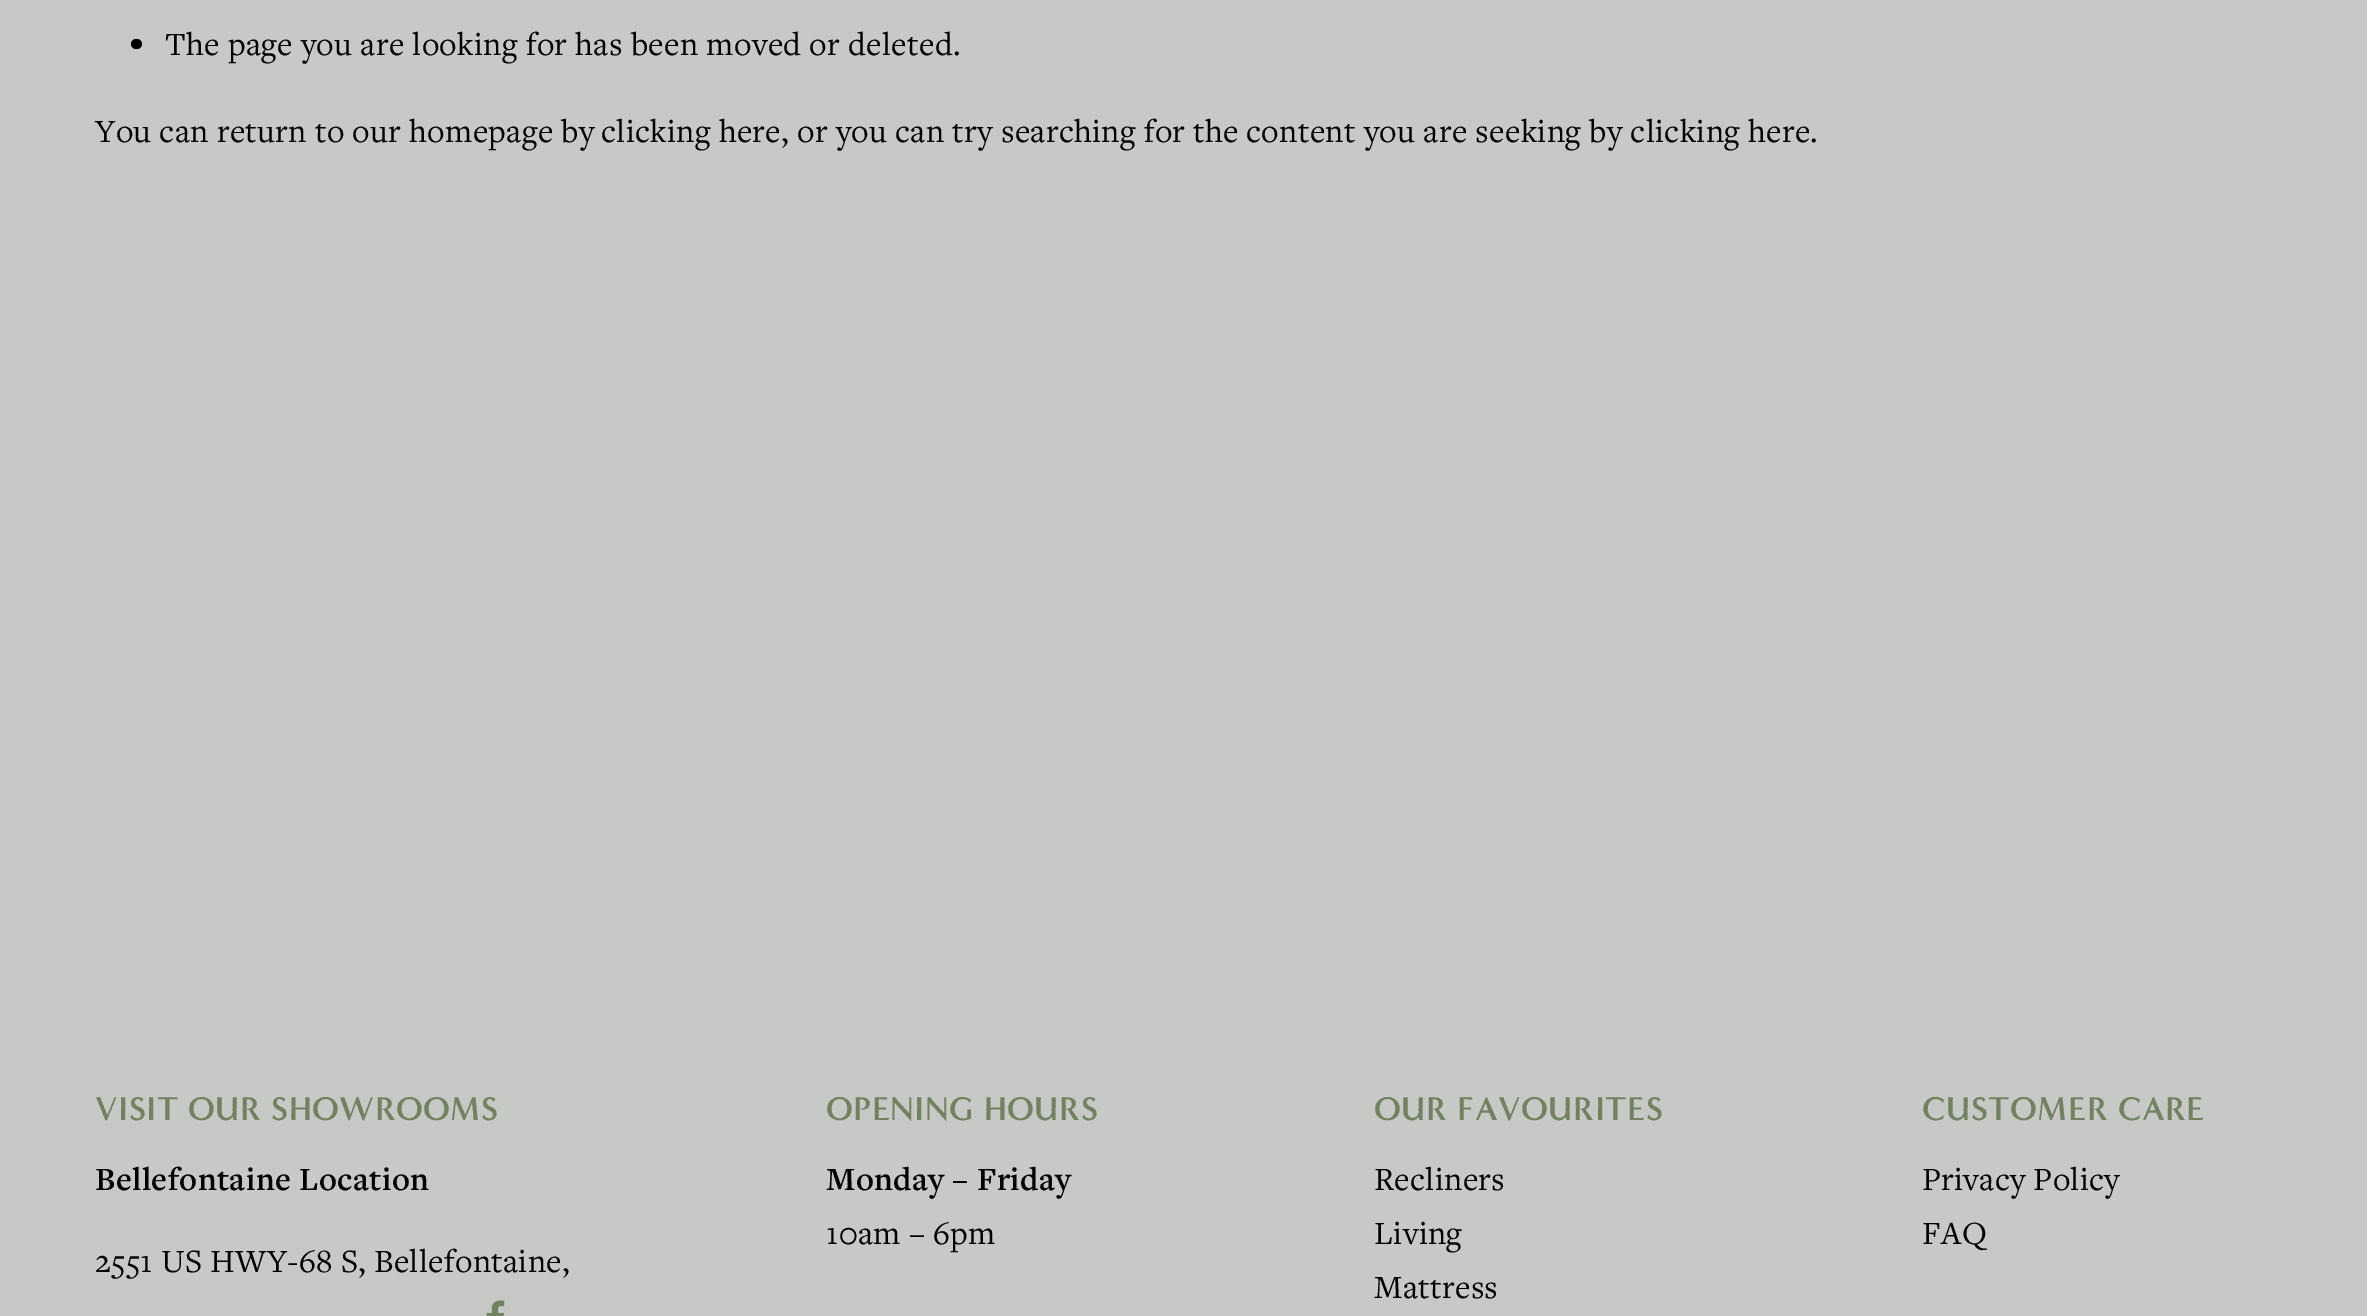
%!PS
<< /PageSize [2367 1316] >> setpagedevice
/rgb { 3 { 255 div 3 1 roll } repeat setrgbcolor } def
/font { [ exch dup neg 0 0 3 -1 roll 0 0 ] selectfont } def
/roundrect { 5 dict begin { /r /h /w /y /x } { exch def } forall
  x r add y moveto x w add y 2 copy h add r arct x w add y h add x 1 index r arct
  x y h add x y r arct x y 2 copy exch w add exch r arct closepath end } def
/picture { 5 dict begin { /h /w /y /x /name } { exch def } forall
  gsave x y translate w h scale
  w h 8 [w 0 0 h 0 0] name (r) file false 3 colorimage grestore end } def
0 1316 translate 1 -1 scale
4 setmiterlimit
198 201 198 rgb
0 0 2367 1316 rectfill
0 0 0 rgb
131 39 11 10 5 roundrect fill
(img_01.rgb) 486 1300 19 16 picture
/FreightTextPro-Regular 33.7 font
165 55 moveto 0.35 0 (The page you are looking for has been moved or deleted.) ashow
95 142 moveto 0.35 0 (You can return to our homepage by) ashow
601 142 moveto 0.35 0 (clicking here, or you can try searching for the) ashow
1246 142 moveto 0.35 0 (content you are seeking by clicking here.) ashow
/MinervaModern-Bold 33.7 font
114 130 96 rgb
95 1120 moveto 0.4 0 (VISIT OUR SHOWROOMS) ashow
826 1120 moveto 0.4 0 (OPENING HOURS) ashow
1374 1120 moveto 0.4 0 (OUR FAVOURITES) ashow
1922 1120 moveto 0.4 0 (CUSTOMER CARE) ashow
/FreightTextPro-SemiBold 33.7 font
0 0 0 rgb
95 1190 moveto 0.35 0 (Bellefontaine Location) ashow
/FreightTextPro-Regular 33.7 font
95 1272 moveto 0.35 0 (2551 US HWY-68 S, Bellefontaine,) ashow
/FreightTextPro-SemiBold 33.7 font
826 1190 moveto 0.35 0 (Monday – Friday) ashow
/FreightTextPro-Regular 33.7 font
826 1244 moveto 0.35 0 (10am – 6pm) ashow
1374 1190 moveto 0.35 0 (Recliners) ashow
1374 1244 moveto 0.35 0 (Living) ashow
1374 1298 moveto 0.35 0 (Mattress) ashow
1922 1190 moveto 0.35 0 (Privacy Policy) ashow
1922 1244 moveto 0.35 0 (FAQ) ashow
showpage
